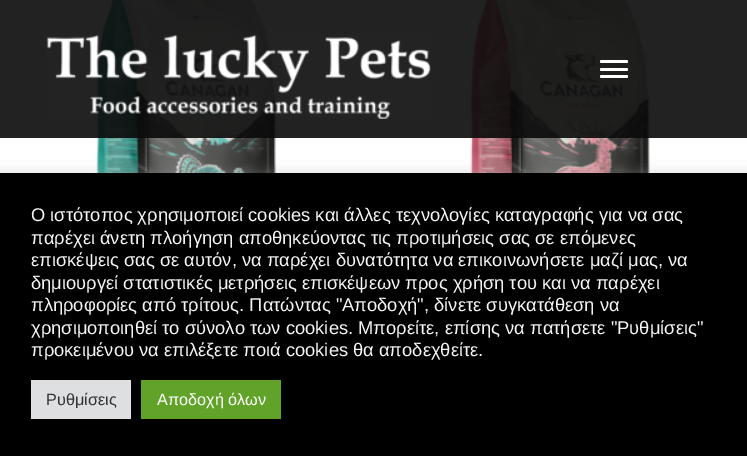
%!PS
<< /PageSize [747 456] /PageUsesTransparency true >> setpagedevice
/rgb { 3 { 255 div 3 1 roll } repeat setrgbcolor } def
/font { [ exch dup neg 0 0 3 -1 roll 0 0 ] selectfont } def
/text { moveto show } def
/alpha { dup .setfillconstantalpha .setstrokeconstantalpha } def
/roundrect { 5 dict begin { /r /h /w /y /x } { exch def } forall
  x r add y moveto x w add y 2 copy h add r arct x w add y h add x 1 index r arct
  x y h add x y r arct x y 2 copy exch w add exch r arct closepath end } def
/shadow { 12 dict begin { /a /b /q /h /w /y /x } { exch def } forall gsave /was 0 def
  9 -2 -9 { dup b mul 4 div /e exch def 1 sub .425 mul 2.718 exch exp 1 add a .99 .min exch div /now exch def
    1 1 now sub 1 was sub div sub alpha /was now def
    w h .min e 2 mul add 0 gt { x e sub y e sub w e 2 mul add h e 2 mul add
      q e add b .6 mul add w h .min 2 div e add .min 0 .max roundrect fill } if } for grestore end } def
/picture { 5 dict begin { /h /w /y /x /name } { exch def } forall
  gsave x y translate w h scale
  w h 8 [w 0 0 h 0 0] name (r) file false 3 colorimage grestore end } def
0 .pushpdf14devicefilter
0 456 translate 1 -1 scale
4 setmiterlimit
255 255 255 rgb
0 0 747 456 rectfill
(img_02.rgb) 96 0 181 173 picture
(img_03.rgb) 470 0 181 173 picture
0.9 alpha
10 10 10 rgb
0 0 747 138 rectfill
1 alpha
(img_01.rgb) 46 34 385 85 picture
255 255 255 rgb
600 60 28 3 1.5 roundrect fill
600 68 28 3 1.5 roundrect fill
600 75 28 3 1.5 roundrect fill
172 171 171 rgb
0 171 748 284 0 6 0.3 shadow
0 0 0 rgb
0 173 747 283 rectfill
222 223 224 rgb
31 380 100 39 rectfill
97 162 41 rgb
141 380 140 39 rectfill
/LiberationSans-Regular 18.35 font
244 244 244 rgb
(Ο ιστότοπος χρησιμοποιεί cookies και άλλες τεχνολογίες καταγραφής για να σας) 31 221 text
(παρέχει άνετη πλοήγηση αποθηκεύοντας τις προτιμήσεις σας σε επόμενες) 31 244 text
(επισκέψεις σας σε αυτόν, να παρέχει δυνατότητα να επικοινωνήσετε μαζί μας, να) 31 266 text
(δημιουργεί στατιστικές μετρήσεις επισκέψεων προς χρήση του και να παρέχει) 31 289 text
(πληροφορίες από τρίτους. Πατώντας "Αποδοχή", δίνετε συγκατάθεση να) 31 311 text
(χρησιμοποιηθεί το σύνολο των cookies. Μπορείτε, επίσης να πατήσετε "Ρυθμίσεις") 31 334 text
(προκειμένου να επιλέξετε ποιά cookies θα αποδεχθείτε.) 31 356 text
/LiberationSans-Regular 16.25 font
51 51 51 rgb
(Ρυθμίσεις) 46 405 text
255 255 255 rgb
(Αποδοχή όλων) 157 405 text
.poppdf14devicefilter showpage
